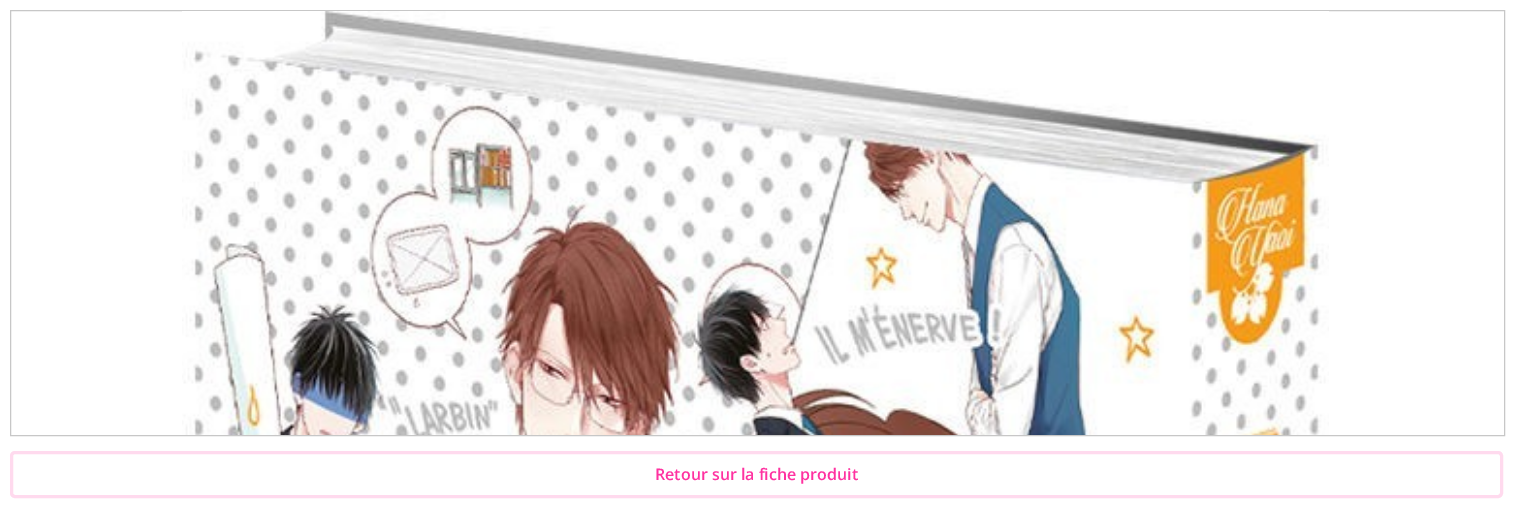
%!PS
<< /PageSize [1513 514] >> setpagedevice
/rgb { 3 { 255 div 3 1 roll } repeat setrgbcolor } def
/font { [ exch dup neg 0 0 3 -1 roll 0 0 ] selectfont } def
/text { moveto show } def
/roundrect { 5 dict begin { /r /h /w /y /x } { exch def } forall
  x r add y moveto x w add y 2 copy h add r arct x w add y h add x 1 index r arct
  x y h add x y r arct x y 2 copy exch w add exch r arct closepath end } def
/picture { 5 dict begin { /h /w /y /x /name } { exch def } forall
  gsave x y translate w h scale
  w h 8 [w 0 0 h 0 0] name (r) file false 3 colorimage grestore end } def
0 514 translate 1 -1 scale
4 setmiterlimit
255 255 255 rgb
0 0 1513 514 rectfill
199 199 199 rgb
10.5 10.5 1494 425 rectstroke
(img_01.rgb) 182 11 1147 424 picture
255 218 238 rgb
3 setlinewidth
11.5 452.5 1490 44 3.5 roundrect stroke
/OpenSans-SemiBold 16 font
255 50 161 rgb
(Retour sur la fiche produit) 655 480 text
showpage
